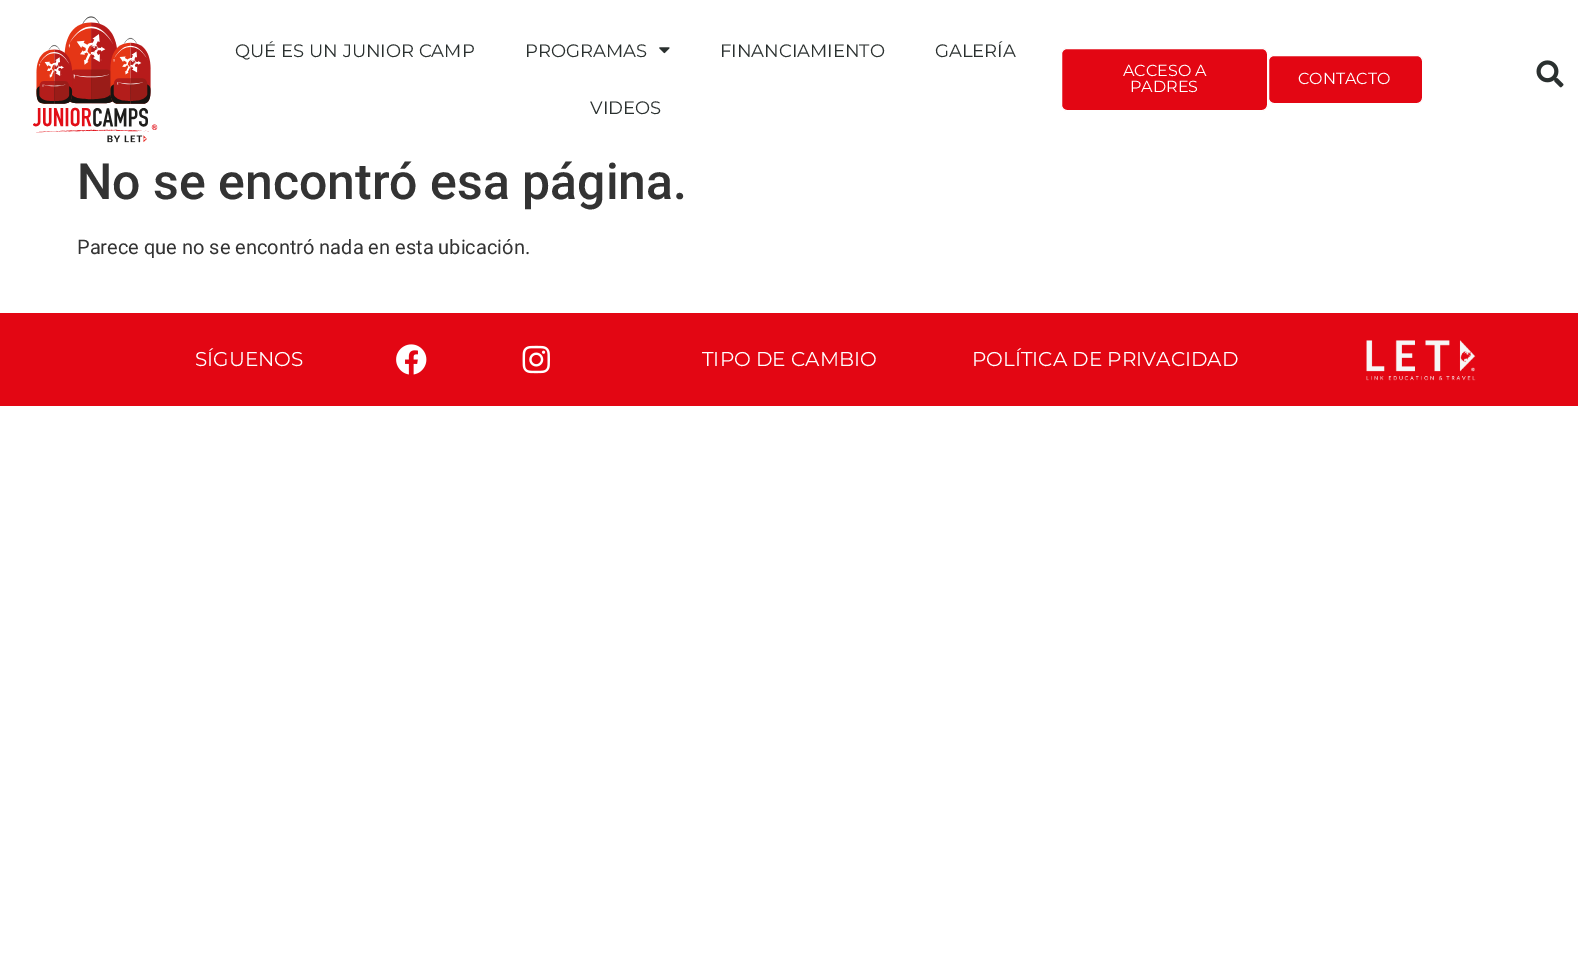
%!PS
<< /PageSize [1578 964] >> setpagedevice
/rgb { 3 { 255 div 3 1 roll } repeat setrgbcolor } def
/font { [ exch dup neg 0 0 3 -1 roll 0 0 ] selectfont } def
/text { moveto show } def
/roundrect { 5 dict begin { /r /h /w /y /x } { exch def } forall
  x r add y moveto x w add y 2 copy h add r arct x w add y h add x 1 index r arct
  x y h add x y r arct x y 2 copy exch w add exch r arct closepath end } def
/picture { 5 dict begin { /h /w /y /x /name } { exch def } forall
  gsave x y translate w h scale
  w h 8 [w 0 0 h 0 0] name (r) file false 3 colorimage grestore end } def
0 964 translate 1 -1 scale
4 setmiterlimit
255 255 255 rgb
0 0 1578 964 rectfill
(img_01.rgb) 33 16 125 127 picture
(img_02.rgb) 659 47 11 7 picture
227 6 19 rgb
1061.5 48.5 206 62 5.5 roundrect gsave fill grestore
255 255 255 rgb
stroke
227 6 19 rgb
1268.5 55.5 154 48 5.5 roundrect gsave fill grestore
255 255 255 rgb
stroke
(img_03.rgb) 1536 60 28 28 picture
227 6 19 rgb
0 313 1578 93 rectfill
(img_04.rgb) 396 344 31 31 picture
(img_05.rgb) 522 345 28 29 picture
(img_06.rgb) 1366 340 110 41 picture
/Montserrat-Regular 18 font
42 48 47 rgb
(QUÉ ES UN JUNIOR CAMP) 235 57 text
(PROGRAMAS) 525 57 text
(FINANCIAMIENTO) 720 57 text
(GALERÍA) 935 57 text
(VIDEOS) 590 114 text
/Montserrat-Regular 16 font
255 255 255 rgb
(ACCESO A) 1123 76 text
(PADRES) 1130 92 text
(CONTACTO) 1298 84 text
/Roboto-Medium 50 font
51 51 51 rgb
(No se encontró esa página.) 77 199 text
/Roboto-Regular 20 font
(Parece que no se encontró nada en esta ubicación.) 77 254 text
/Montserrat-Regular 20 font
255 255 255 rgb
(SÍGUENOS) 195 366 text
(TIPO DE CAMBIO) 702 366 text
(POLÍTICA DE PRIVACIDAD) 972 366 text
showpage
